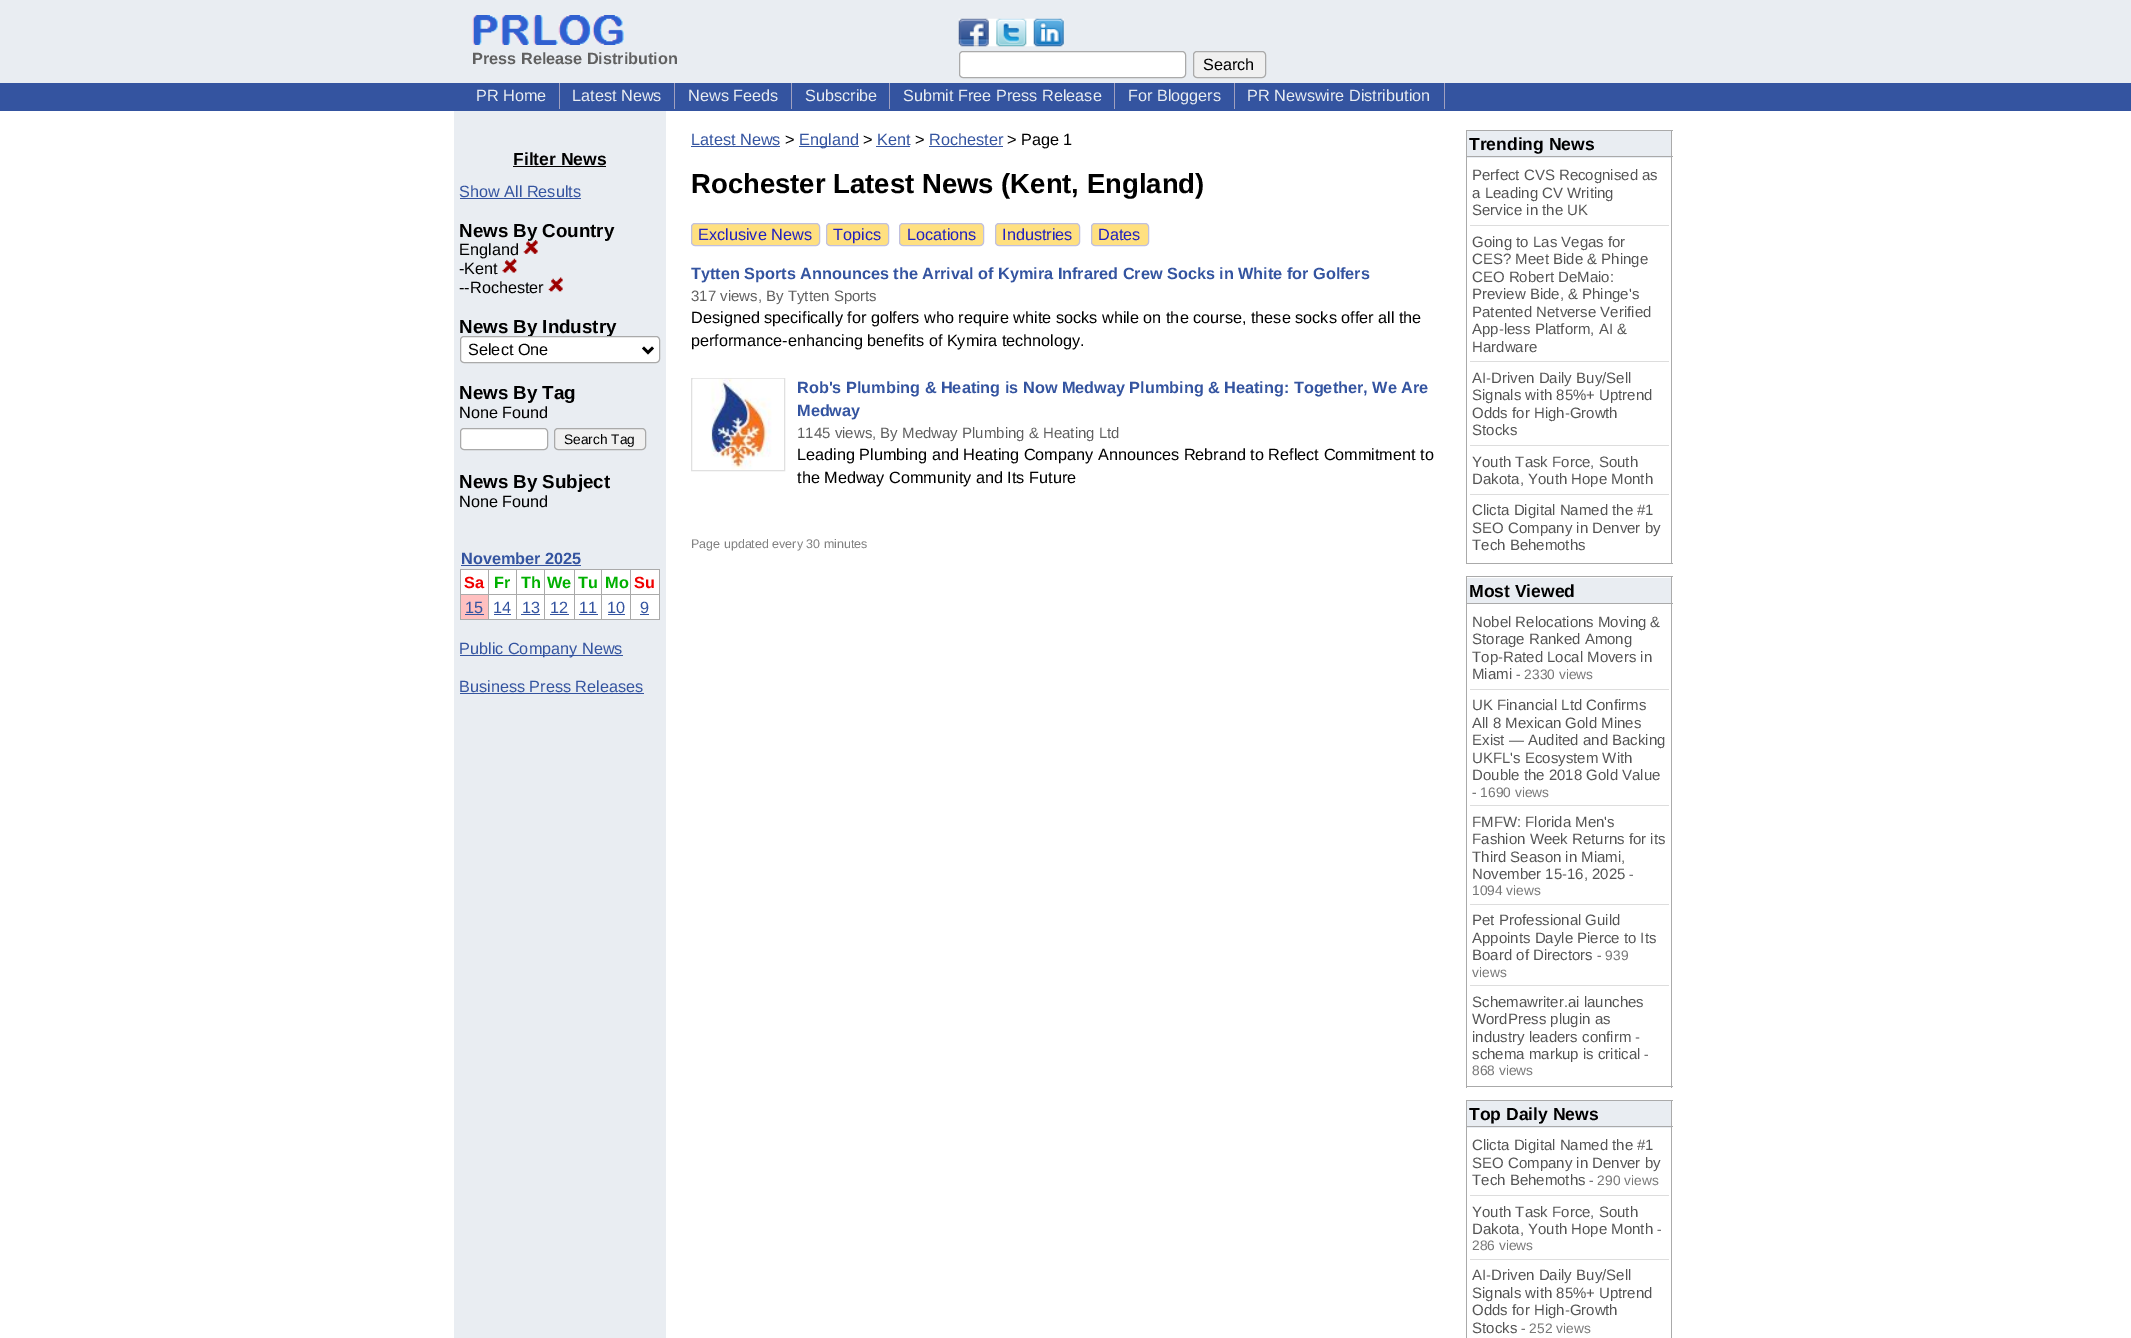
%!PS
<< /PageSize [2131 1338] >> setpagedevice
/rgb { 3 { 255 div 3 1 roll } repeat setrgbcolor } def
/font { [ exch dup neg 0 0 3 -1 roll 0 0 ] selectfont } def
/text { moveto show } def
/roundrect { 5 dict begin { /r /h /w /y /x } { exch def } forall
  x r add y moveto x w add y 2 copy h add r arct x w add y h add x 1 index r arct
  x y h add x y r arct x y 2 copy exch w add exch r arct closepath end } def
/picture { 5 dict begin { /h /w /y /x /name } { exch def } forall
  gsave x y translate w h scale
  w h 8 [w 0 0 h 0 0] name (r) file false 3 colorimage grestore end } def
0 1338 translate 1 -1 scale
4 setmiterlimit
255 255 255 rgb
0 0 2131 1338 rectfill
233 237 242 rgb
0 0 2131 83 rectfill
(img_01.rgb) 472 15 152 30 picture
(img_02.rgb) 958 18 106 29 picture
255 255 255 rgb
959.5 51.5 226 26 3.5 roundrect gsave fill grestore
170 170 170 rgb
stroke
240 240 240 rgb
1193.5 51.5 72 26 3.5 roundrect gsave fill grestore
170 170 170 rgb
stroke
52 84 160 rgb
0 83 2131 28 rectfill
160 160 192 rgb
559 83 1 26 rectfill
674 83 1 26 rectfill
791 83 1 26 rectfill
889 83 1 26 rectfill
1114 83 1 26 rectfill
1234 83 1 26 rectfill
1444 83 1 26 rectfill
233 237 242 rgb
454 111 212 1227 rectfill
0 0 0 rgb
513 166 93 1 rectfill
52 84 160 rgb
460 198 121 1 rectfill
(img_05.rgb) 548 277 15 15 picture
255 255 255 rgb
460.5 428.5 87 21 3.5 roundrect gsave fill grestore
170 170 170 rgb
stroke
240 240 240 rgb
554.5 428.5 91 21 3.5 roundrect gsave fill grestore
170 170 170 rgb
stroke
52 84 160 rgb
461 565 120 1 rectfill
255 255 255 rgb
461 570 27 24 rectfill
170 170 170 rgb
630 569 30 1 rectfill
630 594 30 1 rectfill
659 594 1 26 rectfill
630 619 30 1 rectfill
630 594 1 26 rectfill
601 594 30 1 rectfill
630 569 1 26 rectfill
601 569 30 1 rectfill
255 255 255 rgb
575 570 55 24 rectfill
575 595 55 24 rectfill
170 170 170 rgb
601 619 30 1 rectfill
601 594 1 26 rectfill
574 594 29 1 rectfill
601 569 1 26 rectfill
574 569 29 1 rectfill
574 619 29 1 rectfill
574 594 1 26 rectfill
544 594 31 1 rectfill
574 569 1 26 rectfill
544 569 31 1 rectfill
544 619 31 1 rectfill
544 594 1 26 rectfill
516 594 29 1 rectfill
544 569 1 26 rectfill
516 569 29 1 rectfill
516 619 29 1 rectfill
516 594 1 26 rectfill
488 594 30 1 rectfill
516 569 1 26 rectfill
488 569 30 1 rectfill
488 619 30 1 rectfill
488 594 1 26 rectfill
460 594 29 1 rectfill
488 569 1 26 rectfill
460 569 29 1 rectfill
460 619 29 1 rectfill
460 594 1 26 rectfill
460 569 1 26 rectfill
255 255 255 rgb
489 570 27 24 rectfill
517 570 27 24 rectfill
545 570 29 24 rectfill
631 570 28 24 rectfill
170 170 170 rgb
659 569 1 26 rectfill
255 192 192 rgb
461 595 27 24 rectfill
52 84 160 rgb
465 614 19 1 rectfill
255 255 255 rgb
489 595 27 24 rectfill
52 84 160 rgb
494 614 17 1 rectfill
255 255 255 rgb
517 595 27 24 rectfill
52 84 160 rgb
521 614 19 1 rectfill
255 255 255 rgb
545 595 29 24 rectfill
52 84 160 rgb
550 614 19 1 rectfill
579 614 19 1 rectfill
608 614 17 1 rectfill
255 255 255 rgb
631 595 28 24 rectfill
52 84 160 rgb
640 614 9 1 rectfill
460 655 163 1 rectfill
460 693 184 1 rectfill
691 146 89 1 rectfill
799 146 60 1 rectfill
876 146 34 1 rectfill
929 146 74 1 rectfill
255 224 128 rgb
691.5 223.5 128 22 3.5 roundrect gsave fill grestore
192 192 224 rgb
stroke
255 224 128 rgb
826.5 223.5 62 22 3.5 roundrect gsave fill grestore
192 192 224 rgb
stroke
255 224 128 rgb
899.5 223.5 84 22 3.5 roundrect gsave fill grestore
192 192 224 rgb
stroke
255 224 128 rgb
995.5 223.5 84 22 3.5 roundrect gsave fill grestore
192 192 224 rgb
stroke
255 224 128 rgb
1091.5 223.5 57 22 3.5 roundrect gsave fill grestore
192 192 224 rgb
stroke
224 224 224 rgb
691.5 378.5 93 92 rectstroke
(img_06.rgb) 693 378 91 92 picture
233 237 242 rgb
1467 131 204 27 rectfill
170 170 170 rgb
1466 130 207 1 rectfill
1466 156 207 1 rectfill
1671 156 1 408 rectfill
1671 130 1 28 rectfill
1466 563 207 1 rectfill
1466 156 1 408 rectfill
1466 130 1 28 rectfill
221 221 221 rgb
1470 225 199 1 rectfill
1470 361 199 1 rectfill
1470 445 199 1 rectfill
1470 494 199 1 rectfill
233 237 242 rgb
1467 578 204 25 rectfill
170 170 170 rgb
1466 576 207 1 rectfill
1466 603 207 1 rectfill
1671 603 1 485 rectfill
1671 576 1 28 rectfill
1466 1086 207 1 rectfill
1466 603 1 485 rectfill
1466 576 1 28 rectfill
221 221 221 rgb
1470 689 199 1 rectfill
1470 805 199 1 rectfill
1470 904 199 1 rectfill
1470 985 199 1 rectfill
233 237 242 rgb
1467 1101 204 27 rectfill
170 170 170 rgb
1466 1100 207 1 rectfill
1466 1126 207 1 rectfill
1671 1126 1 212 rectfill
1671 1100 1 28 rectfill
1466 1126 1 212 rectfill
1466 1100 1 28 rectfill
221 221 221 rgb
1470 1195 199 1 rectfill
1470 1259 199 1 rectfill
/LiberationSans-Bold 16.25 font
96 96 96 rgb
(Press Release Distribution) 472 64 text
/LiberationSans-Regular 16.25 font
0 0 0 rgb
(Search) 1203 70 text
233 237 242 rgb
(PR Home) 476 101 text
(Latest News) 572 101 text
(News Feeds) 688 101 text
(Subscribe) 805 101 text
(Submit Free Press Release) 903 101 text
(For Bloggers) 1128 101 text
(PR Newswire Distribution) 1247 101 text
/LiberationSans-Bold 17.5 font
0 0 0 rgb
(Filter News) 513 165 text
/LiberationSans-Regular 16.25 font
52 84 160 rgb
(Show All Results) 459 197 text
/LiberationSans-Bold 18.75 font
0 0 0 rgb
(News By Country) 459 237 text
/LiberationSans-Regular 16.25 font
(England) 459 255 text
(img_03.rgb) 523 240 15 14 picture
(-Kent) 459 274 text
(img_04.rgb) 502 258 15 15 picture
(--Rochester) 459 293 text
/LiberationSans-Bold 18.75 font
(News By Industry) 459 333 text
255 255 255 rgb
460.5 336.5 199 26 3.5 roundrect gsave fill grestore
170 170 170 rgb
stroke
0 0 0 rgb
2.5 setlinewidth
643 347.5 moveto 5 5 rlineto 5 -5 rlineto stroke
/LiberationSans-Regular 16.25 font
(Select One) 468 355 text
/LiberationSans-Bold 18.75 font
(News By Tag) 459 399 text
/LiberationSans-Regular 16.25 font
(None Found) 459 418 text
/LiberationSans-Regular 13.75 font
(Search Tag) 564 444 text
/LiberationSans-Bold 18.75 font
(News By Subject) 459 488 text
/LiberationSans-Regular 16.25 font
(None Found) 459 507 text
/LiberationSans-Bold 16.25 font
52 84 160 rgb
(November 2025) 461 564 text
240 0 0 rgb
(Sa) 464 588 text
0 176 0 rgb
(Fr) 494 588 text
(Th) 521 588 text
(We) 547 588 text
(Tu) 578 588 text
(Mo) 605 588 text
240 0 0 rgb
(Su) 634 588 text
/LiberationSans-Regular 16.25 font
52 84 160 rgb
(15) 465 613 text
(14) 493 613 text
(13) 522 613 text
(12) 550 613 text
(11) 579 613 text
(10) 607 613 text
(9) 640 613 text
(Public Company News) 459 654 text
(Business Press Releases) 459 692 text
(Latest News) 691 145 text
0 0 0 rgb
(>) 785 145 text
52 84 160 rgb
(England) 799 145 text
0 0 0 rgb
(>) 863 145 text
52 84 160 rgb
(Kent) 877 145 text
0 0 0 rgb
(>) 915 145 text
52 84 160 rgb
(Rochester) 929 145 text
0 0 0 rgb
(> Page 1) 1007 145 text
/LiberationSans-Bold 27.5 font
(Rochester Latest News \(Kent, England\)) 691 193 text
/LiberationSans-Regular 16.25 font
32 32 192 rgb
(Exclusive News) 698 240 text
(Topics) 833 240 text
(Locations) 907 240 text
(Industries) 1002 240 text
(Dates) 1098 240 text
/LiberationSans-Bold 16.25 font
52 84 160 rgb
(Tytten Sports Announces the Arrival of Kymira Infrared Crew Socks in White for Golfers) 691 279 text
/LiberationSans-Regular 15 font
96 96 96 rgb
(317 views, By Tytten Sports) 691 301 text
/LiberationSans-Regular 16.25 font
0 0 0 rgb
(Designed specifically for golfers who require white socks while on the course, these socks offer all the) 691 323 text
(performance-enhancing benefits of Kymira technology.) 691 346 text
/LiberationSans-Bold 16.25 font
52 84 160 rgb
(Rob's Plumbing & Heating is Now Medway Plumbing & Heating: Together, We Are) 797 393 text
(Medway) 797 416 text
/LiberationSans-Regular 15 font
96 96 96 rgb
(1145 views, By Medway Plumbing & Heating Ltd) 797 438 text
/LiberationSans-Regular 16.25 font
0 0 0 rgb
(Leading Plumbing and Heating Company Announces Rebrand to Reflect Commitment to) 797 460 text
(the Medway Community and Its Future) 797 483 text
/LiberationSans-Regular 12.5 font
128 128 128 rgb
(Page updated every 30 minutes) 691 548 text
/LiberationSans-Bold 17.5 font
0 0 0 rgb
(Trending News) 1469 150 text
/LiberationSans-Regular 15 font
85 85 85 rgb
(Perfect CVS Recognised as) 1472 180 text
(a Leading CV Writing) 1472 198 text
(Service in the UK) 1472 215 text
(Going to Las Vegas for) 1472 247 text
(CES? Meet Bide & Phinge) 1472 264 text
(CEO Robert DeMaio:) 1472 282 text
(Preview Bide, & Phinge's) 1472 299 text
(Patented Netverse Verified) 1472 317 text
(App-less Platform, AI &) 1472 334 text
(Hardware) 1472 352 text
(AI-Driven Daily Buy/Sell) 1472 383 text
(Signals with 85%+ Uptrend) 1472 400 text
(Odds for High-Growth) 1472 418 text
(Stocks) 1472 435 text
(Youth Task Force, South) 1472 467 text
(Dakota, Youth Hope Month) 1472 484 text
(Clicta Digital Named the #1) 1472 515 text
(SEO Company in Denver by) 1472 533 text
(Tech Behemoths) 1472 550 text
/LiberationSans-Bold 17.5 font
0 0 0 rgb
(Most Viewed) 1469 597 text
/LiberationSans-Regular 15 font
85 85 85 rgb
(Nobel Relocations Moving &) 1472 627 text
(Storage Ranked Among) 1472 644 text
(Top-Rated Local Movers in) 1472 662 text
(Miami) 1472 679 text
/LiberationSans-Regular 13.75 font
119 119 119 rgb
(- 2330 views) 1516 679 text
/LiberationSans-Regular 15 font
85 85 85 rgb
(UK Financial Ltd Confirms) 1472 710 text
(All 8 Mexican Gold Mines) 1472 728 text
(Exist — Audited and Backing) 1472 745 text
(UKFL's Ecosystem With) 1472 763 text
(Double the 2018 Gold Value) 1472 780 text
/LiberationSans-Regular 13.75 font
119 119 119 rgb
(- 1690 views) 1472 797 text
/LiberationSans-Regular 15 font
85 85 85 rgb
(FMFW: Florida Men's) 1472 827 text
(Fashion Week Returns for its) 1472 844 text
(Third Season in Miami,) 1472 862 text
(November 15-16, 2025) 1472 879 text
/LiberationSans-Regular 13.75 font
119 119 119 rgb
(-) 1629 879 text
(1094 views) 1472 895 text
/LiberationSans-Regular 15 font
85 85 85 rgb
(Pet Professional Guild) 1472 925 text
(Appoints Dayle Pierce to Its) 1472 943 text
(Board of Directors) 1472 960 text
/LiberationSans-Regular 13.75 font
119 119 119 rgb
(- 939) 1597 960 text
(views) 1472 977 text
/LiberationSans-Regular 15 font
85 85 85 rgb
(Schemawriter.ai launches) 1472 1007 text
(WordPress plugin as) 1472 1024 text
(industry leaders confirm -) 1472 1042 text
(schema markup is critical) 1472 1059 text
/LiberationSans-Regular 13.75 font
119 119 119 rgb
(-) 1644 1059 text
(868 views) 1472 1075 text
/LiberationSans-Bold 17.5 font
0 0 0 rgb
(Top Daily News) 1469 1120 text
/LiberationSans-Regular 15 font
85 85 85 rgb
(Clicta Digital Named the #1) 1472 1150 text
(SEO Company in Denver by) 1472 1168 text
(Tech Behemoths) 1472 1185 text
/LiberationSans-Regular 13.75 font
119 119 119 rgb
(- 290 views) 1589 1185 text
/LiberationSans-Regular 15 font
85 85 85 rgb
(Youth Task Force, South) 1472 1217 text
(Dakota, Youth Hope Month) 1472 1234 text
/LiberationSans-Regular 13.75 font
119 119 119 rgb
(-) 1657 1234 text
(286 views) 1472 1250 text
/LiberationSans-Regular 15 font
85 85 85 rgb
(AI-Driven Daily Buy/Sell) 1472 1280 text
(Signals with 85%+ Uptrend) 1472 1298 text
(Odds for High-Growth) 1472 1315 text
(Stocks) 1472 1333 text
/LiberationSans-Regular 13.75 font
119 119 119 rgb
(- 252 views) 1521 1333 text
showpage
